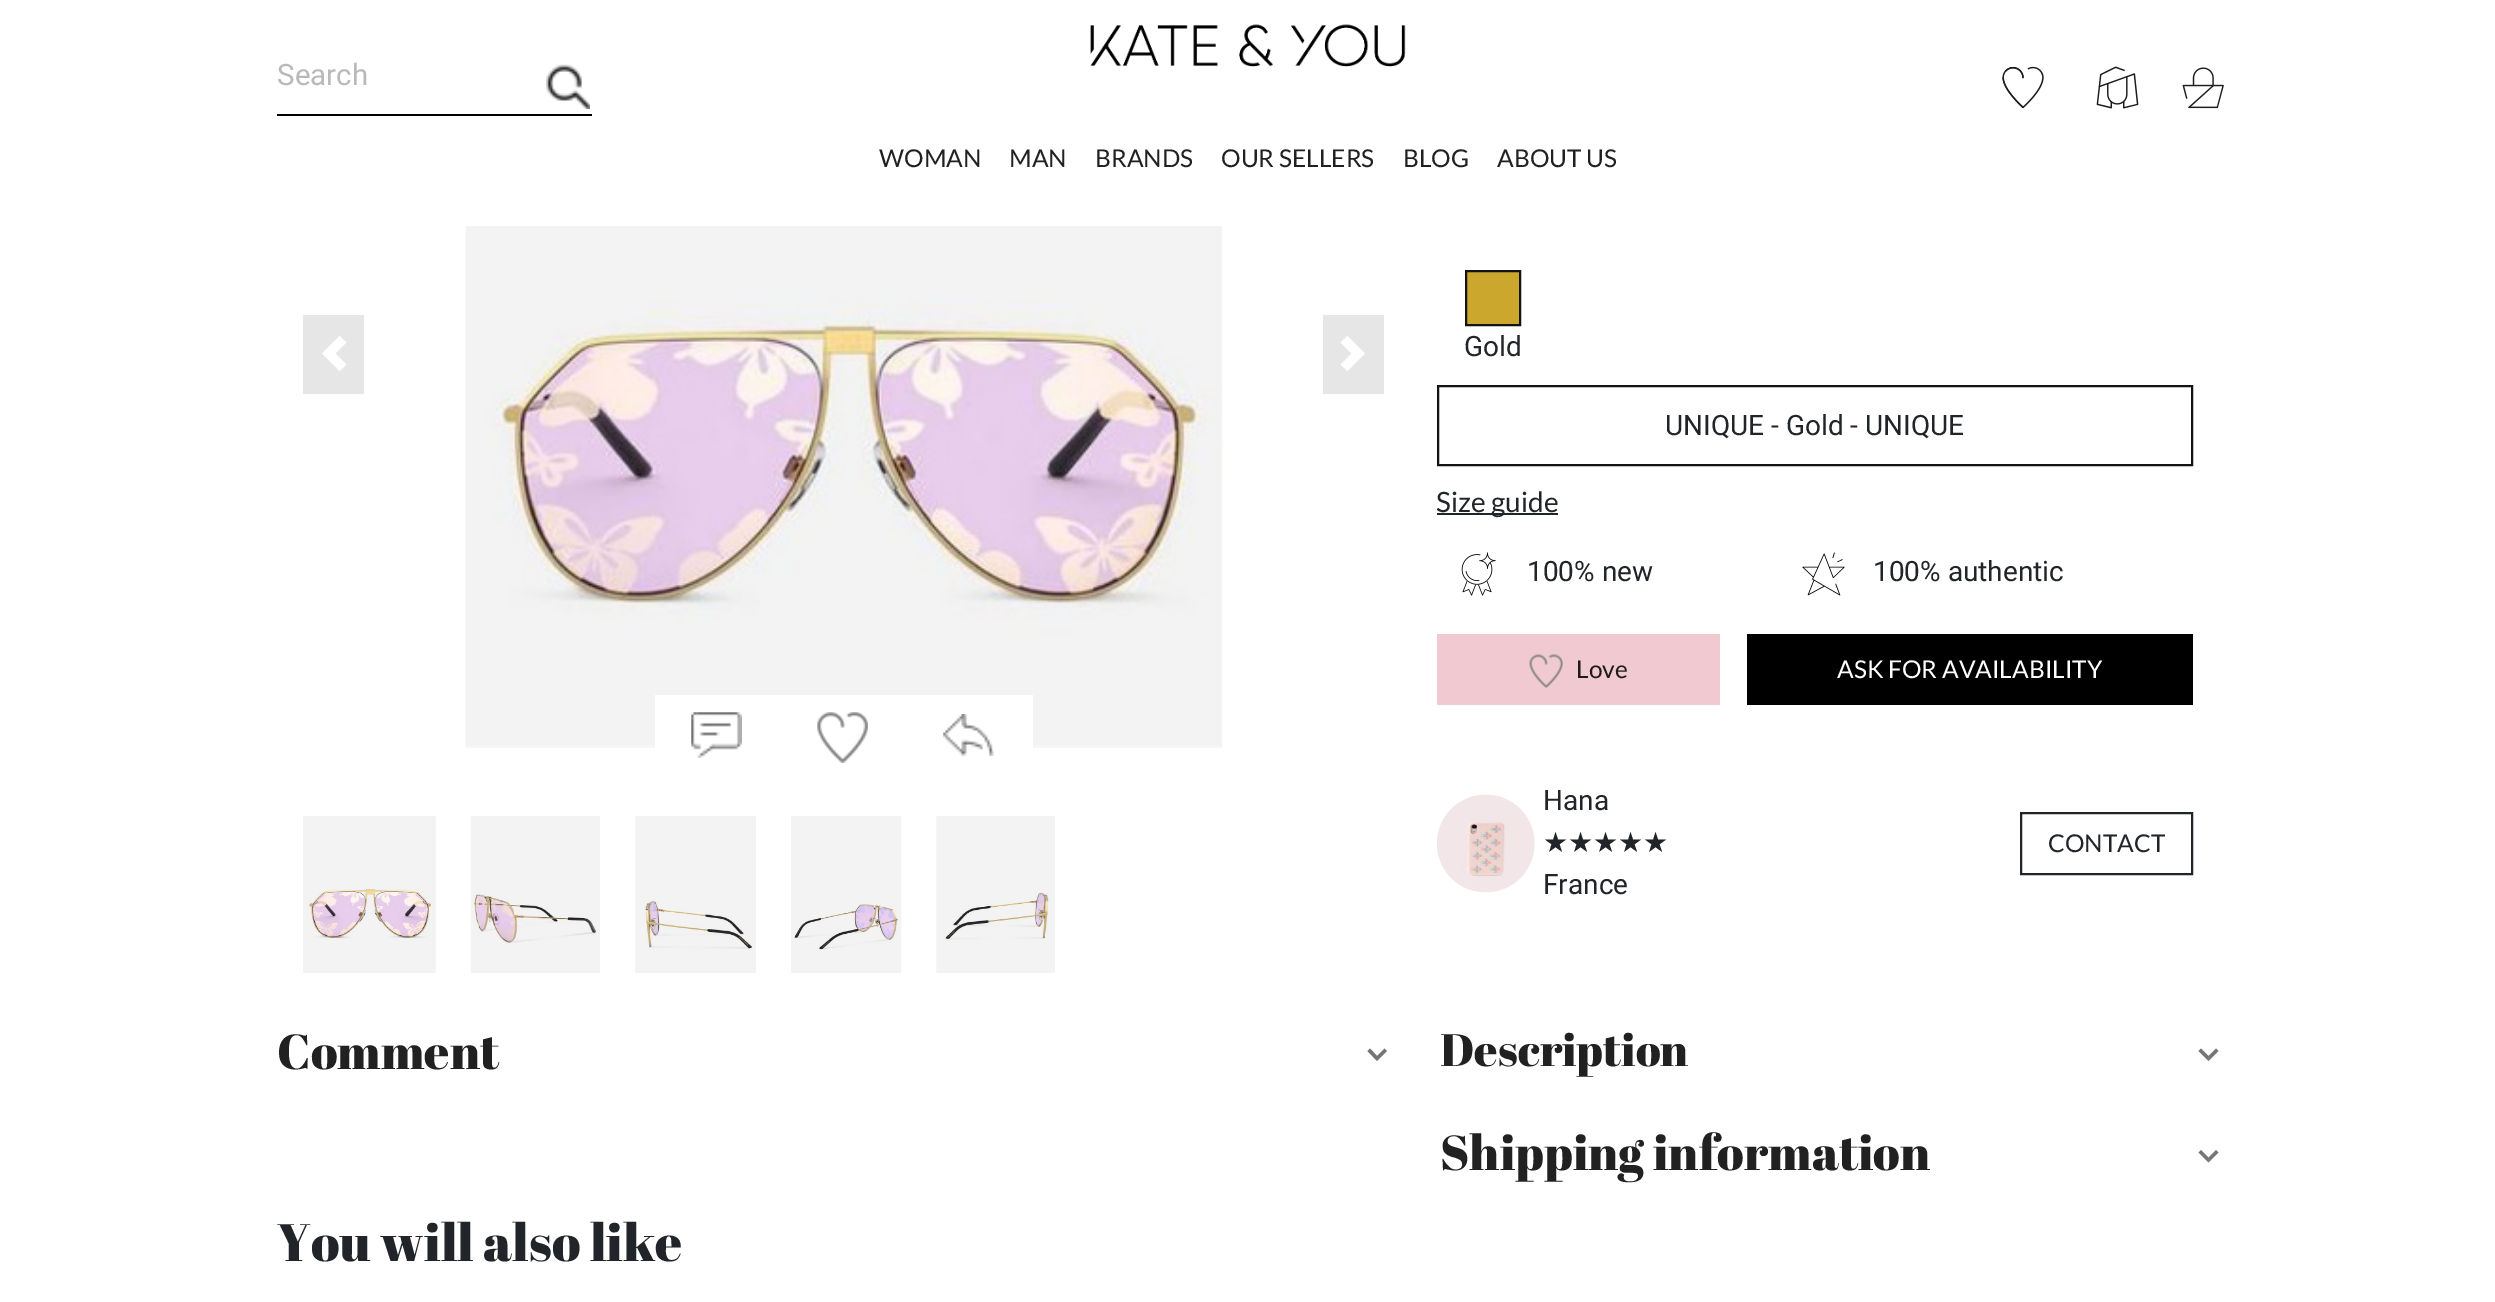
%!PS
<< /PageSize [2495 1302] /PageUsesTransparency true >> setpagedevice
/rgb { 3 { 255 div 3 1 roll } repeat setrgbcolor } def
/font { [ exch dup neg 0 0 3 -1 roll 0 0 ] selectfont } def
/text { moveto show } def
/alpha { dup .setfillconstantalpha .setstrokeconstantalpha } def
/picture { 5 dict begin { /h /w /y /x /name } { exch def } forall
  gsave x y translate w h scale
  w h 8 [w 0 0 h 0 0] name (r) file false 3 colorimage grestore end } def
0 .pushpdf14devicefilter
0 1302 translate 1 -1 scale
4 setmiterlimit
255 255 255 rgb
0 0 2495 1302 rectfill
(img_01.rgb) 1090 24 316 43 picture
(img_02.rgb) 546 64 44 45 picture
0 0 0 rgb
277 114 315 2 rectfill
(img_03.rgb) 2002 66 42 43 picture
(img_04.rgb) 2096 66 43 43 picture
(img_05.rgb) 2182 67 42 42 picture
230 230 230 rgb
303 315 61 79 rectfill
255 255 255 rgb
339.5 336 moveto -17.5 17.5 rlineto 17.5 17.5 rlineto 7 -6.5 rlineto -11 -11 rlineto 11 -11 rlineto closepath fill
(img_06.rgb) 465 226 757 522 picture
230 230 230 rgb
1323 315 61 79 rectfill
255 255 255 rgb
1347.5 336 moveto -7 6.5 rlineto 11 11 rlineto -11 11 rlineto 7 6.5 rlineto 17.5 -17.5 rlineto closepath fill
655 695 378 53 rectfill
(img_07.rgb) 691 712 51 46 picture
(img_08.rgb) 817 712 51 51 picture
(img_09.rgb) 943 714 51 42 picture
203 167 45 rgb
1466 271 moveto 54 0 rlineto 0 54 rlineto -54 0 rlineto closepath gsave fill grestore
19 19 19 rgb
2 setlinewidth
stroke
1438 386 754 79 rectstroke
33 37 41 rgb
1437 513 121 2 rectfill
(img_10.rgb) 1461 552 35 44 picture
(img_11.rgb) 1802 552 43 44 picture
240 202 208 rgb
1437 634 283 71 rectfill
(img_12.rgb) 1529 654 34 34 picture
0 0 0 rgb
1747 634 446 71 rectfill
(img_13.rgb) 303 816 133 157 picture
(img_14.rgb) 470 816 130 157 picture
(img_15.rgb) 635 816 121 157 picture
(img_16.rgb) 791 816 111 157 picture
(img_17.rgb) 936 816 119 157 picture
(img_18.rgb) 1437 794 98 99 picture
33 37 41 rgb
2021 813 171 61 rectstroke
117 117 117 rgb
1387 1051 moveto -10 10 rlineto 0 -5 rlineto 7.5 -7.5 rlineto closepath 1377 1061 moveto -9.5 -10 rlineto 2.5 -2.5 rlineto 7 7.5 rlineto closepath fill
2218.5 1051 moveto -10 10 rlineto 0 -5 rlineto 7.5 -7.5 rlineto closepath fill
0.54 alpha
0 0 0 rgb
2208.5 1061 moveto -10 -10 rlineto 2.5 -2.5 rlineto 7.5 7.5 rlineto closepath fill
1 alpha
117 117 117 rgb
2218.5 1152.5 moveto -10 10 rlineto 0 -5 rlineto 7.5 -7.5 rlineto closepath fill
0.54 alpha
0 0 0 rgb
2208.5 1162.5 moveto -10 -10 rlineto 2.5 -2.5 rlineto 7.5 7.5 rlineto closepath fill
/Roboto-Regular 29.5 font
1 alpha
185 185 185 rgb
(Search) 277 85 text
/Lato-Regular 24.5 font
33 33 33 rgb
(WOMAN) 879 167 text
(MAN) 1009 167 text
(BRANDS) 1095 167 text
(OUR SELLERS) 1221 167 text
(BLOG) 1403 167 text
(ABOUT US) 1497 167 text
/Roboto-Regular 28 font
33 37 41 rgb
(Gold) 1464 356 text
(UNIQUE - Gold - UNIQUE) 1665 435 text
/Lato-Regular 28 font
(Size guide) 1436 512 text
/Roboto-Regular 28 font
(100% new) 1527 581 text
(100% authentic) 1873 581 text
/Lato-Regular 24.5 font
31 26 27 rgb
(Love) 1576 678 text
255 255 255 rgb
(ASK FOR AVAILABILITY) 1837 678 text
/Roboto-Regular 28 font
33 37 41 rgb
(Hana) 1543 810 text
/DejaVuSans-Regular 28 font
(★★★★★) 1543 852 text
/Roboto-Regular 28 font
(France) 1543 894 text
/Lato-Regular 24.5 font
(CONTACT) 2048 852 text
/AbrilFatface-Regular 49 font
33 33 33 rgb
(Comment) 277 1069 text
/AbrilFatface-Regular 45.5 font
(Description) 1440 1066 text
/AbrilFatface-Regular 49 font
(Shipping information) 1440 1170 text
/AbrilFatface-Regular 52.5 font
33 37 41 rgb
(You will also like) 277 1261 text
.poppdf14devicefilter showpage
